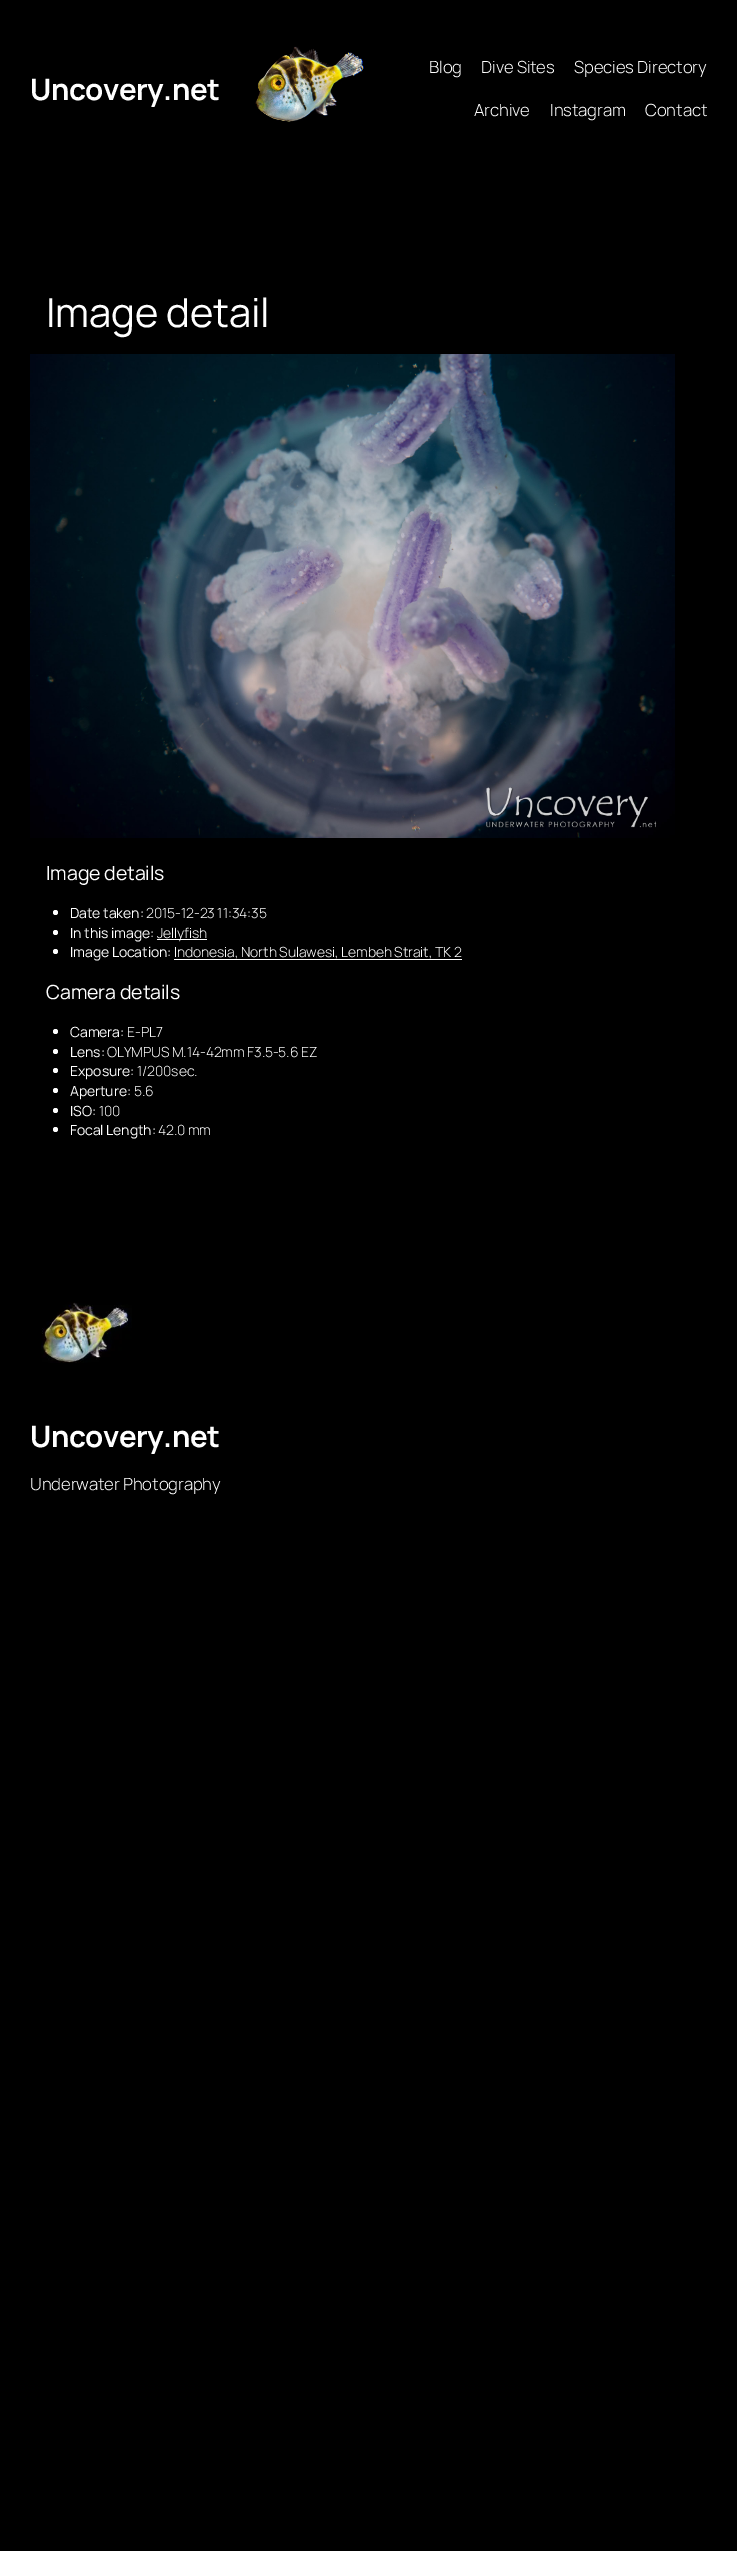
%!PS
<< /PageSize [737 2551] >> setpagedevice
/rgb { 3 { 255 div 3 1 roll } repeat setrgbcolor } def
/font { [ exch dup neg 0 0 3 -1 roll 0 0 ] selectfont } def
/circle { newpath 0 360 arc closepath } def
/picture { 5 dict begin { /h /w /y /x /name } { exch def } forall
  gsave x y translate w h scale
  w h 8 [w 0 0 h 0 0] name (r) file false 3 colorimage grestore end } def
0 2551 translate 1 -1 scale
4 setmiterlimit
0 0 0 rgb
0 0 737 2551 rectfill
(img_01.rgb) 255 46 110 76 picture
(img_02.rgb) 30 354 645 484 picture
255 255 255 rgb
55.5 912.5 2.5 circle fill
55.5 932.5 2.5 circle fill
157 939 50 1 rectfill
55.5 951.5 2.5 circle fill
174 959 288 1 rectfill
55.5 1031.5 2.5 circle fill
55.5 1051.5 2.5 circle fill
55.5 1070.5 2.5 circle fill
55.5 1090.5 2.5 circle fill
55.5 1110.5 2.5 circle fill
55.5 1129.5 2.5 circle fill
(img_03.rgb) 41 1302 91 61 picture
/Manrope-Bold 29.5 font
30 100 moveto -0.5 0 (Uncovery.net) ashow
/Manrope-Light 16.75 font
429 73 moveto -0.1 0 (Blog) ashow
481 73 moveto -0.1 0 (Dive Sites) ashow
574 73 moveto -0.1 0 (Species Directory) ashow
474 116 moveto -0.1 0 (Archive) ashow
550 116 moveto -0.1 0 (Instagram) ashow
645 116 moveto -0.1 0 (Contact) ashow
/Manrope-Regular 40 font
46 327 moveto -0.1 0 (Image detail) ashow
/Manrope-Regular 19.5 font
46 880 moveto -0.1 0 (Image details) ashow
/Manrope-Regular 14 font
70 918 moveto -0.1 0 (Date taken:) ashow
/Manrope-Light 14 font
146 918 moveto -0.1 0 (2015-12-23 11:34:35) ashow
/Manrope-Regular 14 font
70 938 moveto -0.1 0 (In this image:) ashow
/Manrope-Light 14 font
157 938 moveto -0.1 0 (Jellyfish) ashow
/Manrope-Regular 14 font
70 957 moveto -0.1 0 (Image Location:) ashow
/Manrope-Light 14 font
174 957 moveto -0.1 0 (Indonesia, North Sulawesi, Lembeh Strait, TK 2) ashow
/Manrope-Regular 19.5 font
46 999 moveto -0.1 0 (Camera details) ashow
/Manrope-Regular 14 font
70 1037 moveto -0.1 0 (Camera:) ashow
/Manrope-Light 14 font
127 1037 moveto -0.1 0 (E-PL7) ashow
/Manrope-Regular 14 font
70 1057 moveto -0.1 0 (Lens:) ashow
/Manrope-Light 14 font
107 1057 moveto -0.1 0 (OLYMPUS M.14-42mm F3.5-5.6 EZ) ashow
/Manrope-Regular 14 font
70 1076 moveto -0.1 0 (Exposure:) ashow
/Manrope-Light 14 font
137 1076 moveto -0.1 0 (1/200sec.) ashow
/Manrope-Regular 14 font
70 1096 moveto -0.1 0 (Aperture:) ashow
/Manrope-Light 14 font
134 1096 moveto -0.1 0 (5.6) ashow
/Manrope-Regular 14 font
70 1116 moveto -0.1 0 (ISO:) ashow
/Manrope-Light 14 font
99 1116 moveto -0.1 0 (100) ashow
/Manrope-Regular 14 font
70 1135 moveto -0.1 0 (Focal Length:) ashow
/Manrope-Light 14 font
158 1135 moveto -0.1 0 (42.0 mm) ashow
/Manrope-Bold 29.5 font
30 1447 moveto -0.5 0 (Uncovery.net) ashow
/Manrope-Light 16.75 font
30 1490 moveto -0.1 0 (Underwater Photography) ashow
showpage
